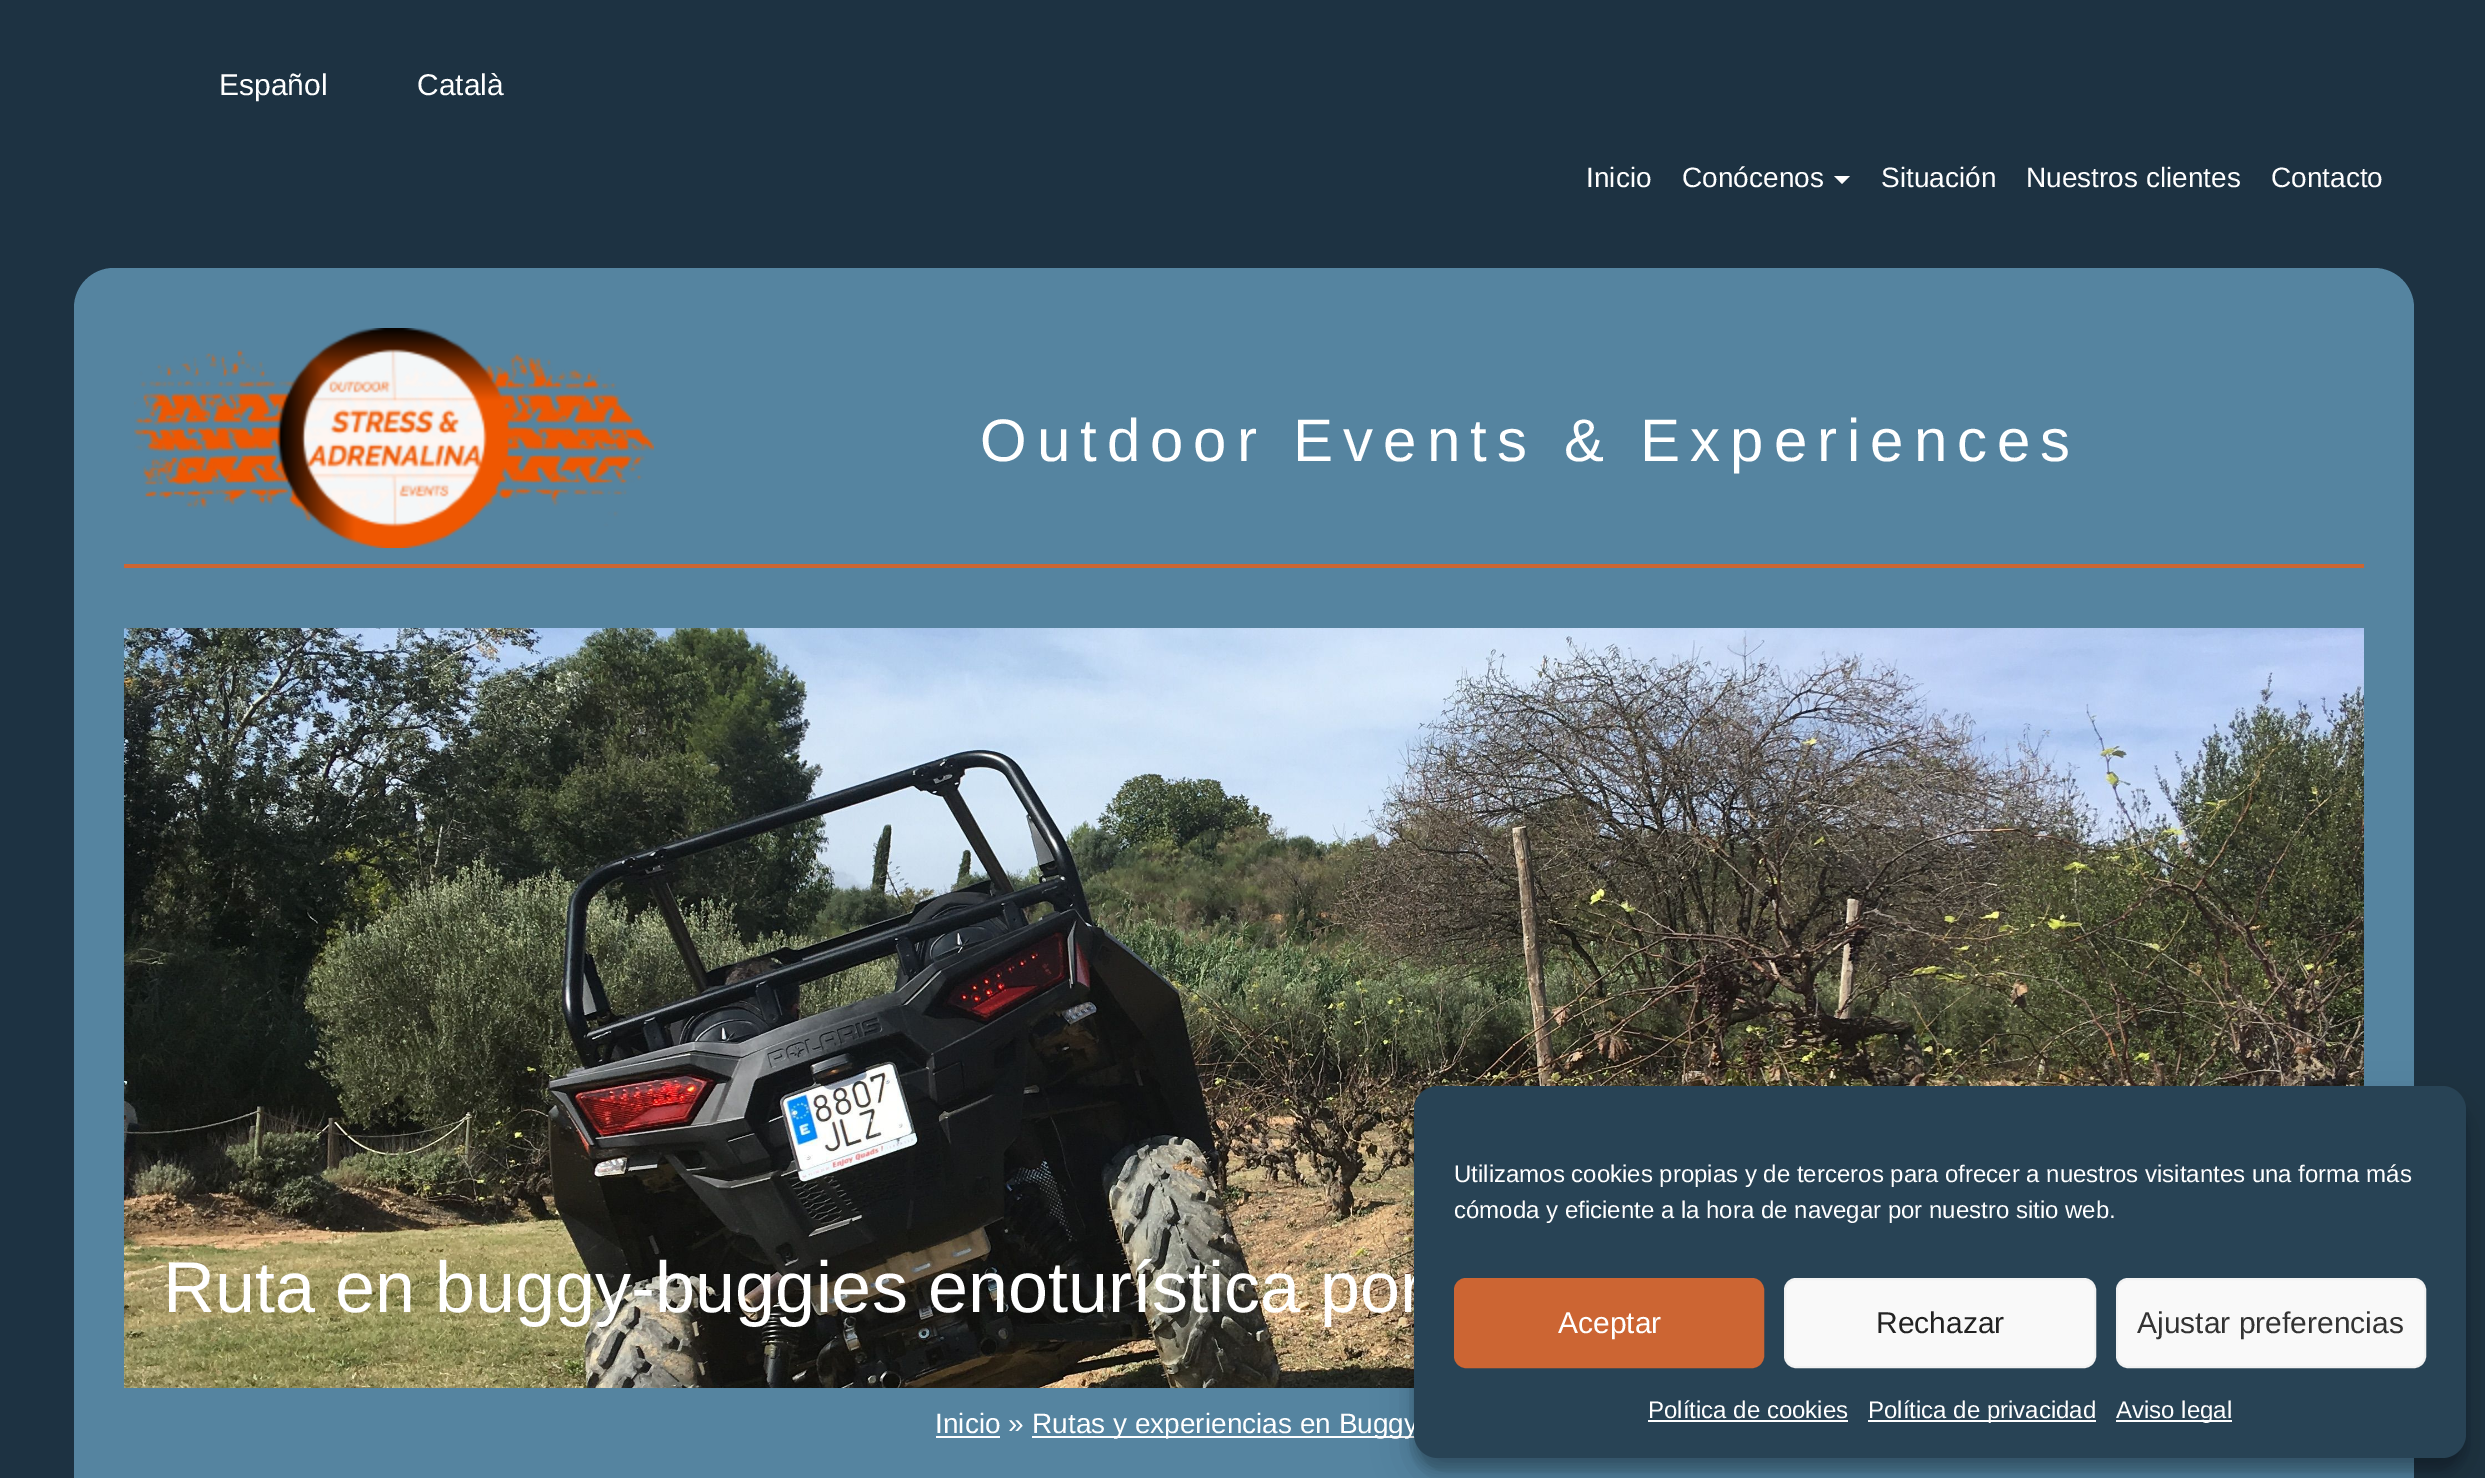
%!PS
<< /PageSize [2485 1478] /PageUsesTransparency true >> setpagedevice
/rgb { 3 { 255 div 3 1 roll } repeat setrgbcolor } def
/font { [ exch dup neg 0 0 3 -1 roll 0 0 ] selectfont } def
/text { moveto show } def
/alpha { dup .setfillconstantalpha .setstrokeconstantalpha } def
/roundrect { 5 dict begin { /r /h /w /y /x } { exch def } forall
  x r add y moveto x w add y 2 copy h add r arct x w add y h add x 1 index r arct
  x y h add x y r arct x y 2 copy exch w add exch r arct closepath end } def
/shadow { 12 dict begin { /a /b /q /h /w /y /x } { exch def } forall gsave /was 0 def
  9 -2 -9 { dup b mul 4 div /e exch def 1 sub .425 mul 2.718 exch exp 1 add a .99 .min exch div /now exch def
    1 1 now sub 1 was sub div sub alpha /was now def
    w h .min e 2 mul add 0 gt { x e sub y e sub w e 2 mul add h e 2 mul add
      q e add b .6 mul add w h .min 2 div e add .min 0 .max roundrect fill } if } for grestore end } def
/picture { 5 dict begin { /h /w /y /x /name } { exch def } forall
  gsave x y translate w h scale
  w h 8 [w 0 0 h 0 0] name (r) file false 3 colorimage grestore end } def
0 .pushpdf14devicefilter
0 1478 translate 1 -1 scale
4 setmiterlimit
29 50 66 rgb
0 0 2485 1478 rectfill
255 255 255 rgb
1834 176 moveto 16 0 rlineto -8 8 rlineto closepath fill
85 132 160 rgb
74 268 2340 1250 40 roundrect fill
(img_01.rgb) 134 328 520 220 picture
204 102 51 rgb
124 564 2240 4 rectfill
(img_02.rgb) 124 628 2240 760 picture
255 255 255 rgb
936 1436 64 2 rectfill
1032 1436 383 2 rectfill
0 0 0 rgb
1414 1098 1052 372 24 6 0.23 shadow
1414 1106 1052 372 24 20 0.19 shadow
/LiberationSans-Regular 30 font
255 255 255 rgb
(Español) 219 95 text
(Català) 417 95 text
/LiberationSans-Regular 28 font
(Inicio) 1586 187 text
(Conócenos) 1682 187 text
(Situación) 1881 187 text
(Nuestros clientes) 2026 187 text
(Contacto) 2271 187 text
/LiberationSans-Regular 60 font
980 461 moveto 10 0 (Outdoor Events & Experiences) ashow
/LiberationSans-Regular 72 font
(Ruta en buggy-buggies enoturística por) 163 1312 text
/LiberationSans-Regular 28 font
(Inicio ») 935 1433 text
(Rutas y experiencias en Buggy) 1032 1433 text
40 67 85 rgb
1414 1086 1052 372 24 roundrect fill
/LiberationSans-Regular 24 font
255 255 255 rgb
(Utilizamos cookies propias y de terceros para ofrecer a nuestros visitantes una forma más) 1454 1182 text
(cómoda y eficiente a la hora de navegar por nuestro sitio web.) 1454 1218 text
204 101 51 rgb
1455 1279 308 88 11 roundrect gsave fill grestore
2 setlinewidth
stroke
/LiberationSans-Regular 30 font
255 255 255 rgb
(Aceptar) 1558 1333 text
249 249 249 rgb
1785 1279 310 88 11 roundrect gsave fill grestore
242 242 242 rgb
stroke
34 34 34 rgb
(Rechazar) 1876 1333 text
249 249 249 rgb
2117 1279 308 88 11 roundrect gsave fill grestore
242 242 242 rgb
stroke
51 51 51 rgb
(Ajustar preferencias) 2137 1333 text
/LiberationSans-Regular 24 font
255 255 255 rgb
(Política de cookies) 1648 1418 text
1648 1420 200 2 rectfill
1868 1420 228 2 rectfill
(Política de privacidad) 1868 1418 text
2116 1420 116 2 rectfill
(Aviso legal) 2116 1418 text
.poppdf14devicefilter showpage
